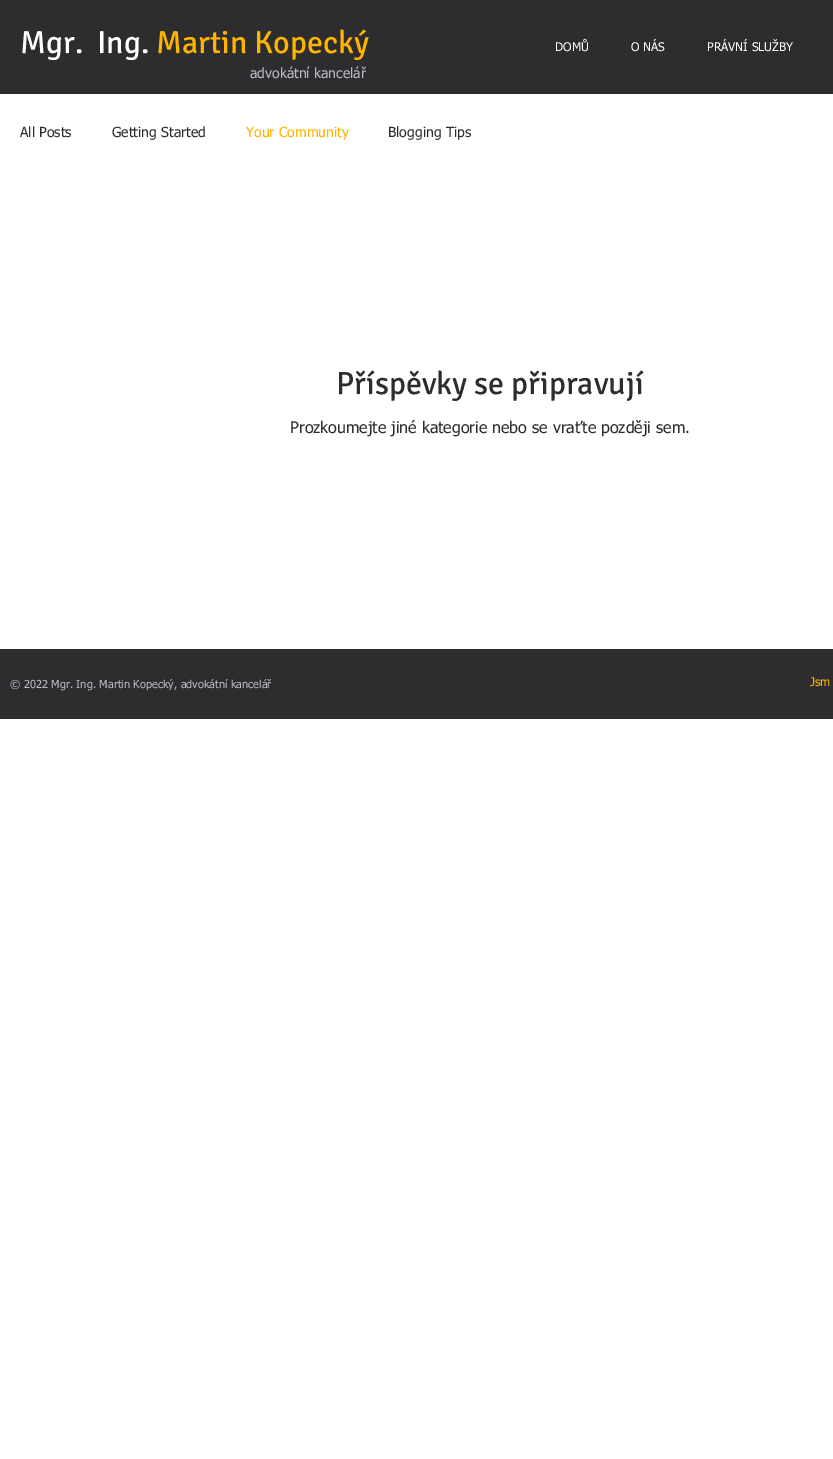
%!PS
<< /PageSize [833 1459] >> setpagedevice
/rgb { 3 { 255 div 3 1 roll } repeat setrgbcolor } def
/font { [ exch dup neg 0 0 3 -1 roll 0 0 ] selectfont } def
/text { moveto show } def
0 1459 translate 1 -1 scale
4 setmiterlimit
255 255 255 rgb
0 0 833 1459 rectfill
45 45 47 rgb
0 0 833 94 rectfill
0 649 833 70 rectfill
/Signika-Regular 32 font
255 255 255 rgb
(Mgr.  Ing.) 20 53 text
255 180 0 rgb
(Martin Kopecký) 156 53 text
/tahoma-Regular 12 font
255 255 255 rgb
(DOMŮ) 555 51 text
(O NÁS) 631 51 text
(PRÁVNÍ SLUŽBY) 707 51 text
/tahoma-Regular 14 font
184 187 193 rgb
(advokátní kancelář) 250 78 text
45 45 47 rgb
(All Posts) 20 137 text
(Getting Started) 112 137 text
255 180 0 rgb
(Your Community) 246 137 text
45 45 47 rgb
(Blogging Tips) 388 137 text
/Signika-Regular 32 font
(Příspěvky se připravují) 336 394 text
/tahoma-Regular 16 font
(Prozkoumejte jiné kategorie nebo se vraťte později sem.) 290 433 text
/tahoma-Regular 11 font
184 187 193 rgb
(© 2022 Mgr. Ing. Martin Kopecký, advokátní kancelář) 10 688 text
/tahoma-Regular 12 font
255 180 0 rgb
(Jsm) 810 686 text
showpage
